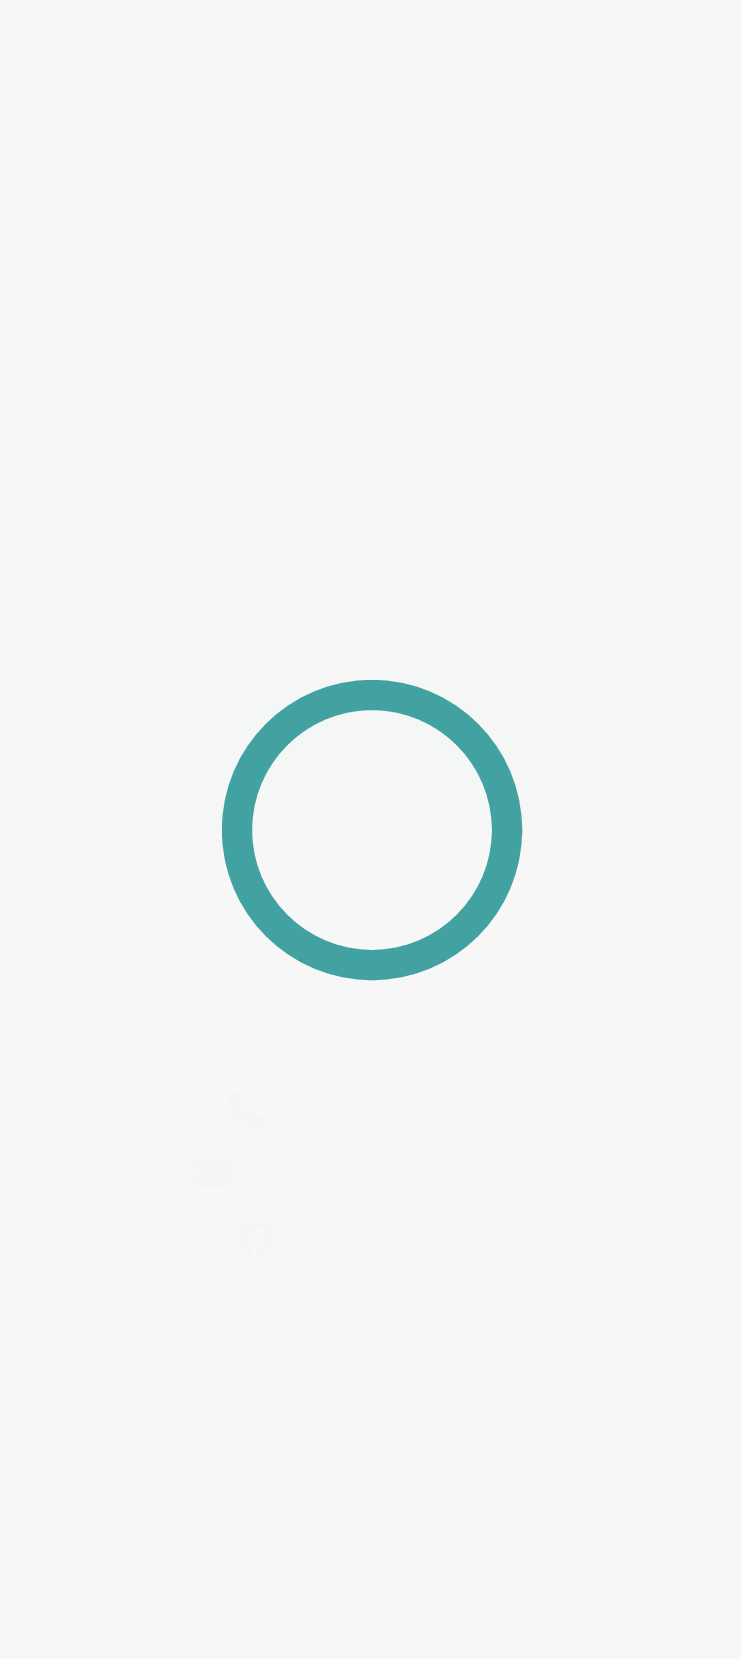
%!PS
<< /PageSize [741 1659] >> setpagedevice
/rgb { 3 { 255 div 3 1 roll } repeat setrgbcolor } def
/circle { newpath 0 360 arc closepath } def
/picture { 5 dict begin { /h /w /y /x /name } { exch def } forall
  gsave x y translate w h scale
  w h 8 [w 0 0 h 0 0] name (r) file false 3 colorimage grestore end } def
0 1659 translate 1 -1 scale
4 setmiterlimit
247 247 247 rgb
0 0 741 1659 rectfill
(img_01.rgb) 98 0 546 836 picture
(img_02.rgb) 228 1092 36 37 picture
(img_03.rgb) 194 1161 36 27 picture
(img_04.rgb) 238 1220 36 37 picture
(img_05.rgb) 204 1286 32 33 picture
66 161 161 rgb
30 setlinewidth
372 830 135 circle stroke
showpage
